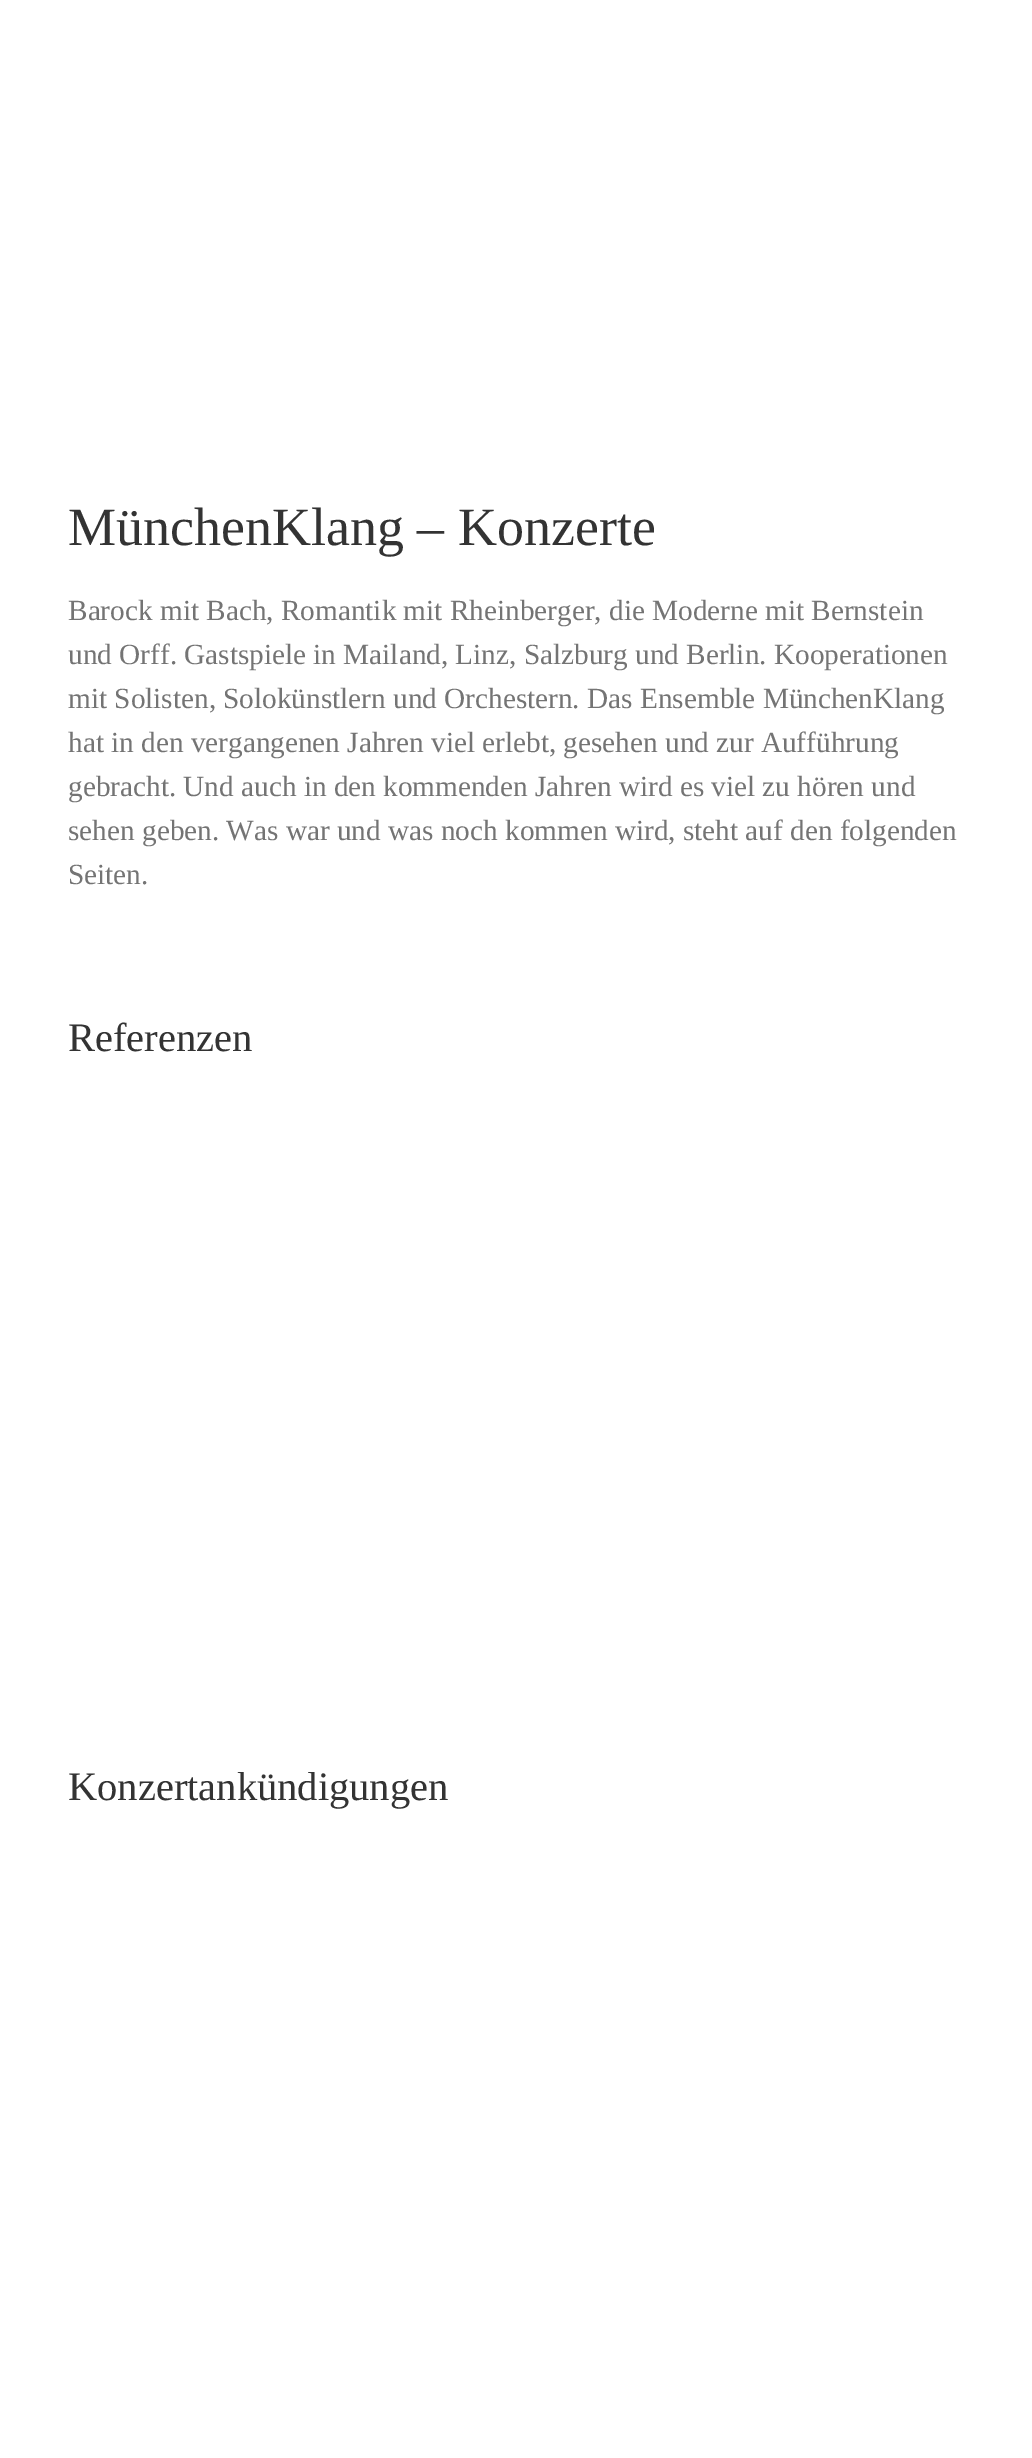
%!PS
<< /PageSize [1032 2458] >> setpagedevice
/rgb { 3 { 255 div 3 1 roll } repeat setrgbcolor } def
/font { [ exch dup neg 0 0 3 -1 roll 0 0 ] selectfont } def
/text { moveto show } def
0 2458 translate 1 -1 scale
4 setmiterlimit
255 255 255 rgb
0 0 1032 2458 rectfill
/LiberationSerif-Regular 54 font
51 51 51 rgb
(MünchenKlang – Konzerte) 68 545 text
/LiberationSerif-Regular 29.25 font
116 116 116 rgb
(Barock mit Bach, Romantik mit Rheinberger, die Moderne mit Bernstein) 68 620 text
(und Orff. Gastspiele in Mailand, Linz, Salzburg und Berlin. Kooperationen) 68 664 text
(mit Solisten, Solokünstlern und Orchestern. Das Ensemble MünchenKlang) 68 708 text
(hat in den vergangenen Jahren viel erlebt, gesehen und zur Aufführung) 68 752 text
(gebracht. Und auch in den kommenden Jahren wird es viel zu hören und) 68 796 text
(sehen geben. Was war und was noch kommen wird, steht auf den folgenden) 68 840 text
(Seiten.) 68 884 text
/LiberationSerif-Regular 40.5 font
51 51 51 rgb
(Referenzen) 68 1051 text
(Konzertankündigungen) 68 1800 text
showpage
